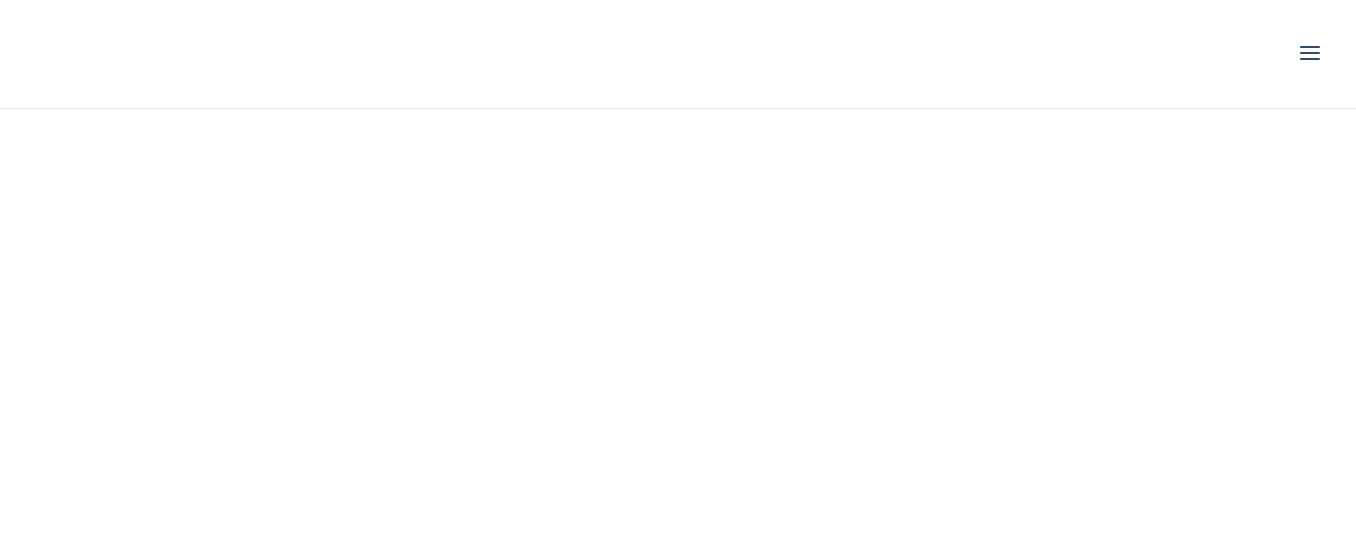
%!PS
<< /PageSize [1356 539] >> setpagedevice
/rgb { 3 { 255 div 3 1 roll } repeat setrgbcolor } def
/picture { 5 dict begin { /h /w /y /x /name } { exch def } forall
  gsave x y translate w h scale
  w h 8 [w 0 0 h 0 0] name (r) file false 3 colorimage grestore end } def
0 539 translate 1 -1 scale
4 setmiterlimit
255 255 255 rgb
0 0 1356 539 rectfill
230 230 230 rgb
0 108 1356 1 rectfill
(img_01.rgb) 1300 46 20 14 picture
showpage
